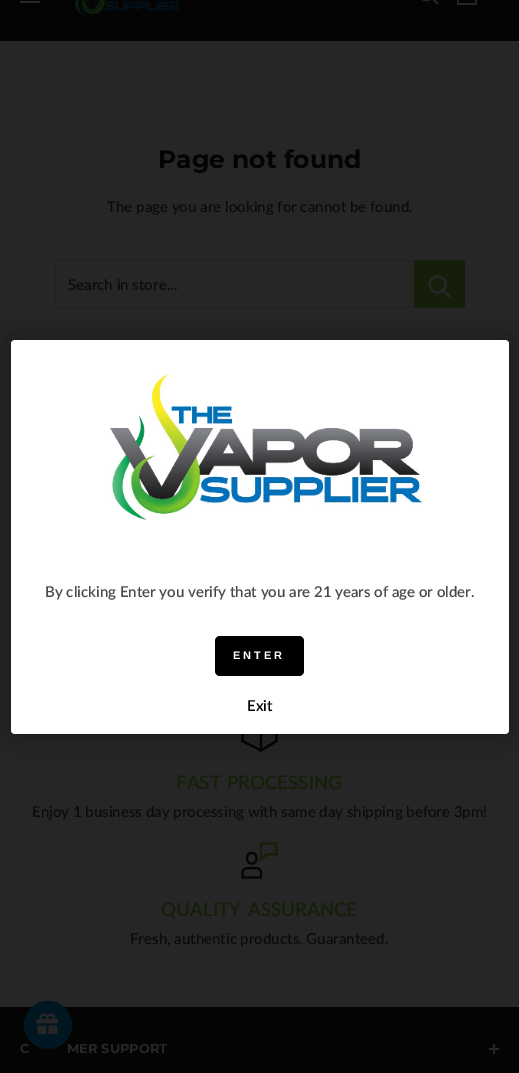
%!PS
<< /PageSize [519 1073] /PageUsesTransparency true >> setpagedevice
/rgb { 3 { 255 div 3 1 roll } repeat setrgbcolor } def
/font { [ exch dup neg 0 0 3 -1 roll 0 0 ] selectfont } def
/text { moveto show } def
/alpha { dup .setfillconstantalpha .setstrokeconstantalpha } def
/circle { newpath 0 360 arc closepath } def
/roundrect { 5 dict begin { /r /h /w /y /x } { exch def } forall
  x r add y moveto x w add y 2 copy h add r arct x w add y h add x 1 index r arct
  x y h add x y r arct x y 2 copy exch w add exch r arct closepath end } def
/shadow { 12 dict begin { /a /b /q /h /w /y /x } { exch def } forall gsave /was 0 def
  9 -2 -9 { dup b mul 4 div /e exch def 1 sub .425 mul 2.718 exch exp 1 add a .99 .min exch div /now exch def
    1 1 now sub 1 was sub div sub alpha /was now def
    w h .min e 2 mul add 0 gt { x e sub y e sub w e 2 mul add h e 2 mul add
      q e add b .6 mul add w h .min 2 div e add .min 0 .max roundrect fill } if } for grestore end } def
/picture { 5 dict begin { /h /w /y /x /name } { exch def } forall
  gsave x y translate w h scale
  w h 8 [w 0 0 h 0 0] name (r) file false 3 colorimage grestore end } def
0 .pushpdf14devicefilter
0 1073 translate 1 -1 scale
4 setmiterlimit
38 38 38 rgb
0 0 519 1073 rectfill
4 4 4 rgb
0 0 519 41 rectfill
38 38 38 rgb
20 1 20 2 rectfill
(img_01.rgb) 75 0 105 17 picture
2.1 setlinewidth
2 setlinecap
437 3 moveto -5.5 -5.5 rlineto stroke
0 setlinecap
426 -8 8 circle stroke
(img_02.rgb) 457 0 20 5 picture
32 32 32 rgb
56 260 358 1 rectfill
56 307 358 1 rectfill
55 261 1 46 rectfill
20 30 8 rgb
414 260 51 48 rectfill
38 38 38 rgb
2.2 setlinewidth
2 setlinecap
449 296 moveto -5.5 -5.5 rlineto stroke
0 setlinecap
437.5 284.5 8 circle stroke
4 4 4 rgb
2.3 setlinewidth
276.5 726 moveto -15.5 7.5 rlineto -18.5 -9.5 rlineto 261 733.5 moveto 0 17 rlineto stroke
2 setlinecap
276.5 726 moveto 0 15 rlineto -15.5 9.5 rlineto -18.5 -9.5 rlineto 0 -17 rlineto 15.5 -7.5 rlineto closepath stroke
0 0 0 rgb
11 340 498 394 4 15 0.35 shadow
255 255 255 rgb
11 340 498 394 4 roundrect fill
(img_03.rgb) 110 373 314 147 picture
0 0 0 rgb
215 636 89 40 5 roundrect fill
(img_04.rgb) 241 842 37 37 picture
4 4 4 rgb
0 1007 519 66 rectfill
38 38 38 rgb
493 1044 2 10 rectfill
489 1048 10 2 rectfill
/Montserrat-Bold 25 font
4 4 4 rgb
(Page not found) 158 168 text
/Lato-SemiBold 15 font
11 11 11 rgb
(The page you are looking for cannot be found.) 107 212 text
(Search in store...) 68 290 text
74 74 74 rgb
(By clicking Enter you verify that you are 21 years of age or older.) 45 597 text
/LiberationSans-Bold 11 font
255 255 255 rgb
233 659 moveto 3 0 (ENTER) ashow
/Lato-SemiBold 15 font
4 4 4 rgb
(Exit) 247 711 text
/Lato-SemiBold 18.75 font
20 30 8 rgb
176 789 moveto 1 0 32 (FAST PROCESSING) widthshow
/Lato-SemiBold 15 font
11 11 11 rgb
(Enjoy 1 business day processing with same day shipping before 3pm!) 32 817 text
/Lato-SemiBold 18.75 font
20 30 8 rgb
161 916 moveto 2 0 32 (QUALITY ASSURANCE) widthshow
/Lato-SemiBold 15 font
11 11 11 rgb
(Fresh, authentic products. Guaranteed.) 130 944 text
/Montserrat-Bold 13 font
38 38 38 rgb
(C) 20 1053 text
(MER SUPPORT) 67 1053 text
0 23 33 rgb
48 1025 24 circle fill
(img_05.rgb) 36 1013 22 21 picture
.poppdf14devicefilter showpage
